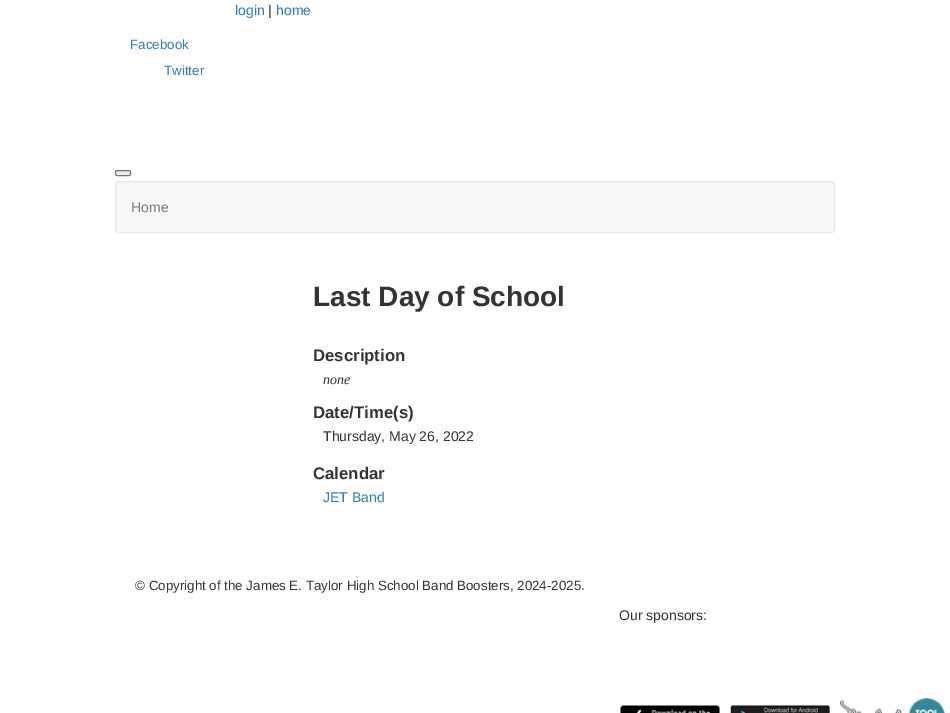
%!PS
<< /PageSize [950 713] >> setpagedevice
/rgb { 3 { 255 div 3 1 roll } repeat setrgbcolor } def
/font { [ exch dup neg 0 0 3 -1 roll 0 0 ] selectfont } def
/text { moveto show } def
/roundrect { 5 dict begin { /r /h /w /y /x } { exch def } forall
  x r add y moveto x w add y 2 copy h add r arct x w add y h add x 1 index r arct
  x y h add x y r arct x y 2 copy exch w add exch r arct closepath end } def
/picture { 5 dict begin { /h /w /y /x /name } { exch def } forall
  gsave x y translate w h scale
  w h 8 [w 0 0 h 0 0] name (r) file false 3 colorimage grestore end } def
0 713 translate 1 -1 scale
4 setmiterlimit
255 255 255 rgb
0 0 950 713 rectfill
239 239 239 rgb
115.5 170.5 15 5 1.5 roundrect gsave fill grestore
118 118 118 rgb
stroke
248 248 248 rgb
115.5 181.5 719 51 3.5 roundrect gsave fill grestore
231 231 231 rgb
stroke
(img_01.rgb) 620 705 100 8 picture
(img_02.rgb) 730 705 100 8 picture
(img_03.rgb) 840 698 105 15 picture
/LiberationSans-Regular 14 font
51 122 183 rgb
(login) 235 15 text
51 51 51 rgb
(|) 268 15 text
51 122 183 rgb
(home) 276 15 text
/LiberationSans-Regular 13.35 font
(Facebook) 130 49 text
(Twitter) 164 75 text
/LiberationSans-Regular 14 font
119 119 119 rgb
(Home) 131 212 text
/LiberationSans-Bold 28 font
51 51 51 rgb
(Last Day of School) 313 306 text
/LiberationSans-Bold 16.75 font
(Description) 313 361 text
/LiberationSerif-Italic 14 font
(none) 323 384 text
/LiberationSans-Bold 16.75 font
(Date/Time\(s\)) 313 418 text
/LiberationSans-Regular 14 font
(Thursday, May 26, 2022) 323 441 text
/LiberationSans-Bold 16.75 font
(Calendar) 313 479 text
/LiberationSans-Regular 14 font
51 122 183 rgb
(JET Band) 323 502 text
/LiberationSans-Regular 13.35 font
51 51 51 rgb
(© Copyright of the James E. Taylor High School Band Boosters, 2024-2025.) 135 590 text
/LiberationSans-Regular 14 font
(Our sponsors:) 619 620 text
showpage
